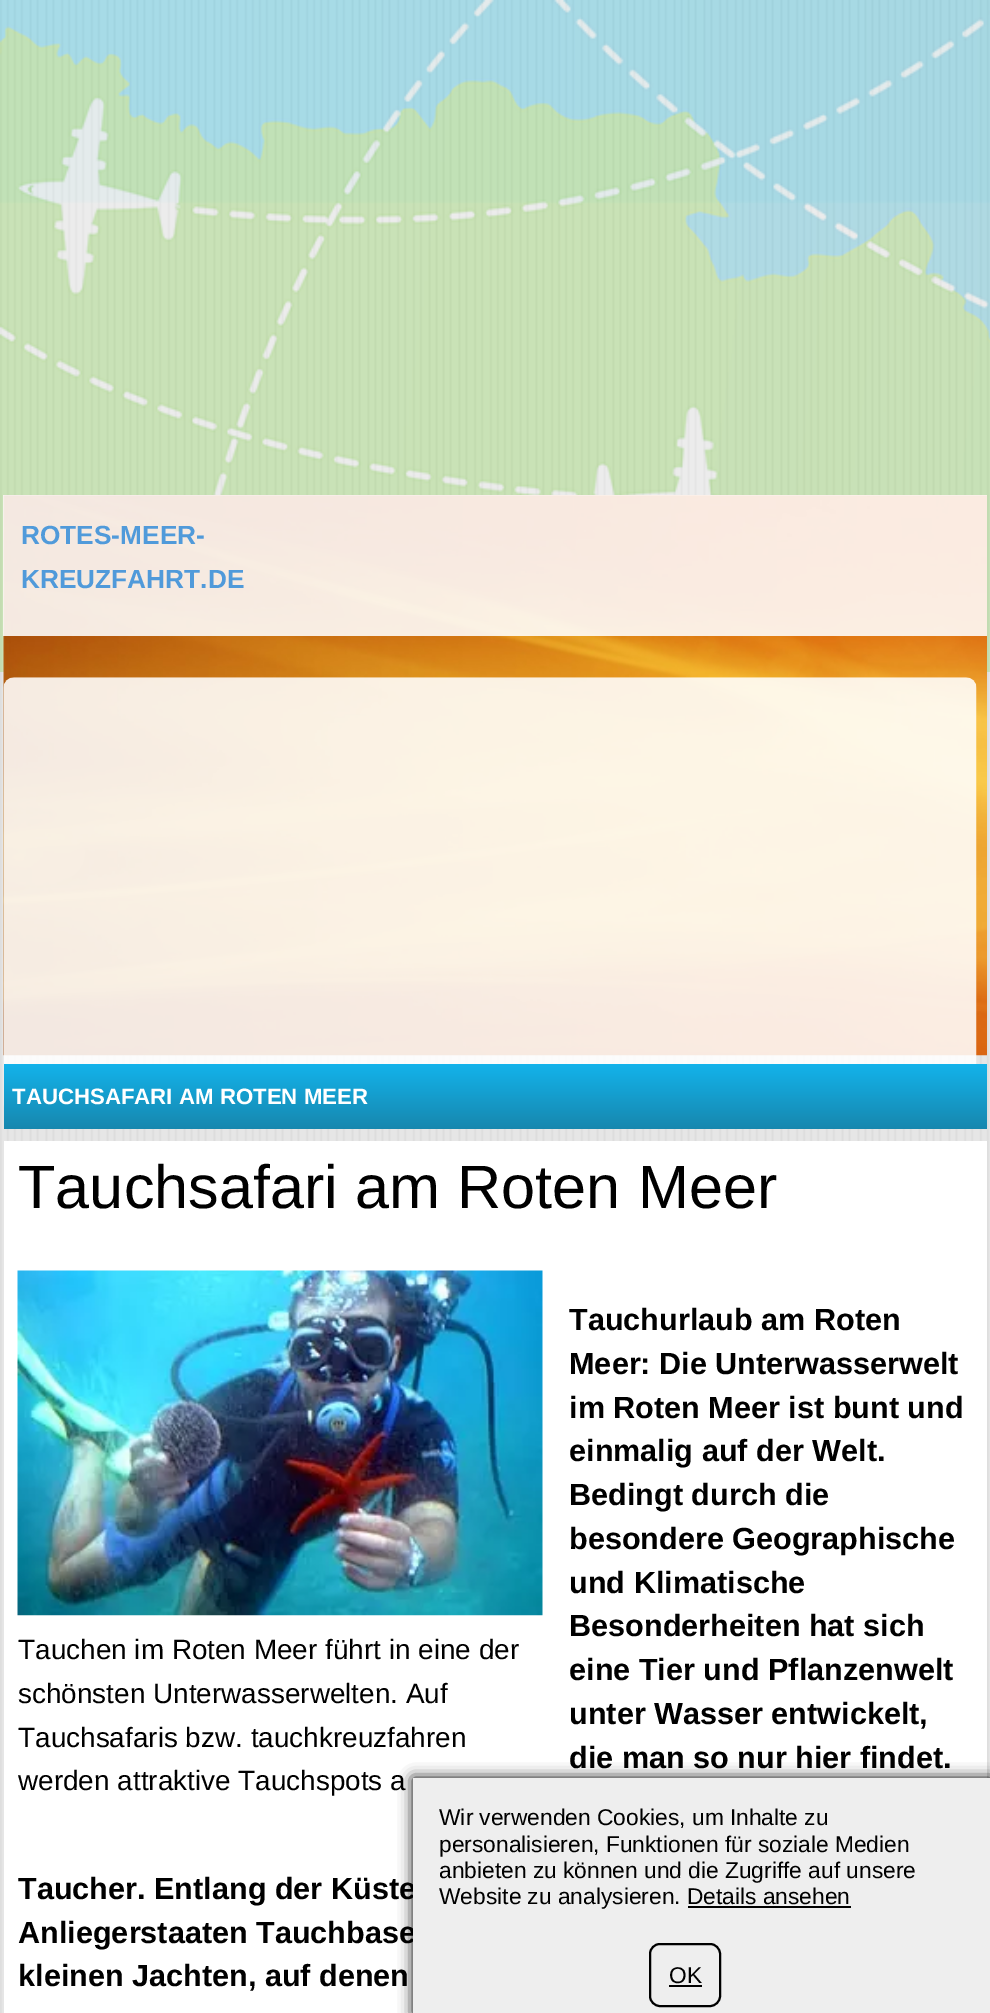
%!PS
<< /PageSize [990 2013] /PageUsesTransparency true >> setpagedevice
/rgb { 3 { 255 div 3 1 roll } repeat setrgbcolor } def
/font { [ exch dup neg 0 0 3 -1 roll 0 0 ] selectfont } def
/text { moveto show } def
/alpha { dup .setfillconstantalpha .setstrokeconstantalpha } def
/roundrect { 5 dict begin { /r /h /w /y /x } { exch def } forall
  x r add y moveto x w add y 2 copy h add r arct x w add y h add x 1 index r arct
  x y h add x y r arct x y 2 copy exch w add exch r arct closepath end } def
/shadow { 12 dict begin { /a /b /q /h /w /y /x } { exch def } forall gsave /was 0 def
  9 -2 -9 { dup b mul 4 div /e exch def 1 sub .425 mul 2.718 exch exp 1 add a .99 .min exch div /now exch def
    1 1 now sub 1 was sub div sub alpha /was now def
    w h .min e 2 mul add 0 gt { x e sub y e sub w e 2 mul add h e 2 mul add
      q e add b .6 mul add w h .min 2 div e add .min 0 .max roundrect fill } if } for grestore end } def
/picture { 5 dict begin { /h /w /y /x /name } { exch def } forall
  gsave x y translate w h scale
  w h 8 [w 0 0 h 0 0] name (r) file false 3 colorimage grestore end } def
0 .pushpdf14devicefilter
0 2013 translate 1 -1 scale
4 setmiterlimit
255 255 255 rgb
0 0 990 2013 rectfill
(img_01.rgb) 0 0 990 2013 picture
(img_02.rgb) 0 0 990 672 picture
(img_03.rgb) 3 495 984 561 picture
0.88 alpha
3 495 984 141 rectfill
1 alpha
(img_04.rgb) 3 677 974 430 picture
gsave 4 1064 moveto 983 0 rlineto 0 65 rlineto -983 0 rlineto closepath clip newpath
<< /ShadingType 2 /ColorSpace /DeviceRGB /Coords [495 1129 495 1064] /Extend [true true] /Function << /FunctionType 2 /Domain [0 1] /C0 [0.09 0.529 0.682] /C1 [0.075 0.702 0.922] /N 1 >> >> shfill grestore
4 1141 983 872 rectfill
(img_05.rgb) 17 1270 526 346 picture
0 0 0 rgb
413 1778 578 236 0 7 1 shadow
/LiberationSans-Bold 26.25 font
80 154 218 rgb
(ROTES-MEER-) 21 544 text
(KREUZFAHRT.DE) 21 588 text
/LiberationSans-Bold 22.25 font
255 255 255 rgb
(TAUCHSAFARI AM ROTEN MEER) 12 1104 text
/LiberationSans-Regular 61.25 font
0 0 0 rgb
(Tauchsafari am Roten Meer) 18 1208 text
/LiberationSans-Bold 30.6 font
(Tauchurlaub am Roten) 569 1330 text
(Meer: Die Unterwasserwelt) 569 1374 text
(im Roten Meer ist bunt und) 569 1418 text
(einmalig auf der Welt.) 569 1461 text
(Bedingt durch die) 569 1505 text
(besondere Geographische) 569 1549 text
(und Klimatische) 569 1593 text
(Besonderheiten hat sich) 569 1636 text
(eine Tier und Pflanzenwelt) 569 1680 text
(unter Wasser entwickelt,) 569 1724 text
(die man so nur hier findet.) 569 1768 text
(Taucher. Entlang der Küste) 18 1899 text
(Anliegerstaaten Tauchbase) 18 1943 text
(kleinen Jachten, auf denen) 18 1986 text
/LiberationSans-Regular 27.9 font
(Tauchen im Roten Meer führt in eine der) 18 1659 text
(schönsten Unterwasserwelten. Auf) 18 1703 text
(Tauchsafaris bzw. tauchkreuzfahren) 18 1747 text
(werden attraktive Tauchspots a) 18 1790 text
238 238 238 rgb
413 1778 577 235 rectfill
/LiberationSans-Regular 22.75 font
0 0 0 rgb
(Wir verwenden Cookies, um Inhalte zu) 439 1825 text
(personalisieren, Funktionen für soziale Medien) 439 1852 text
(anbieten zu können und die Zugriffe auf unsere) 439 1878 text
(Website zu analysieren. Details ansehen) 439 1904 text
688 1906 163 2 rectfill
2 setlinewidth
650 1944 70 62 10 roundrect stroke
(OK) 669 1983 text
669 1985 33 2 rectfill
.poppdf14devicefilter showpage
